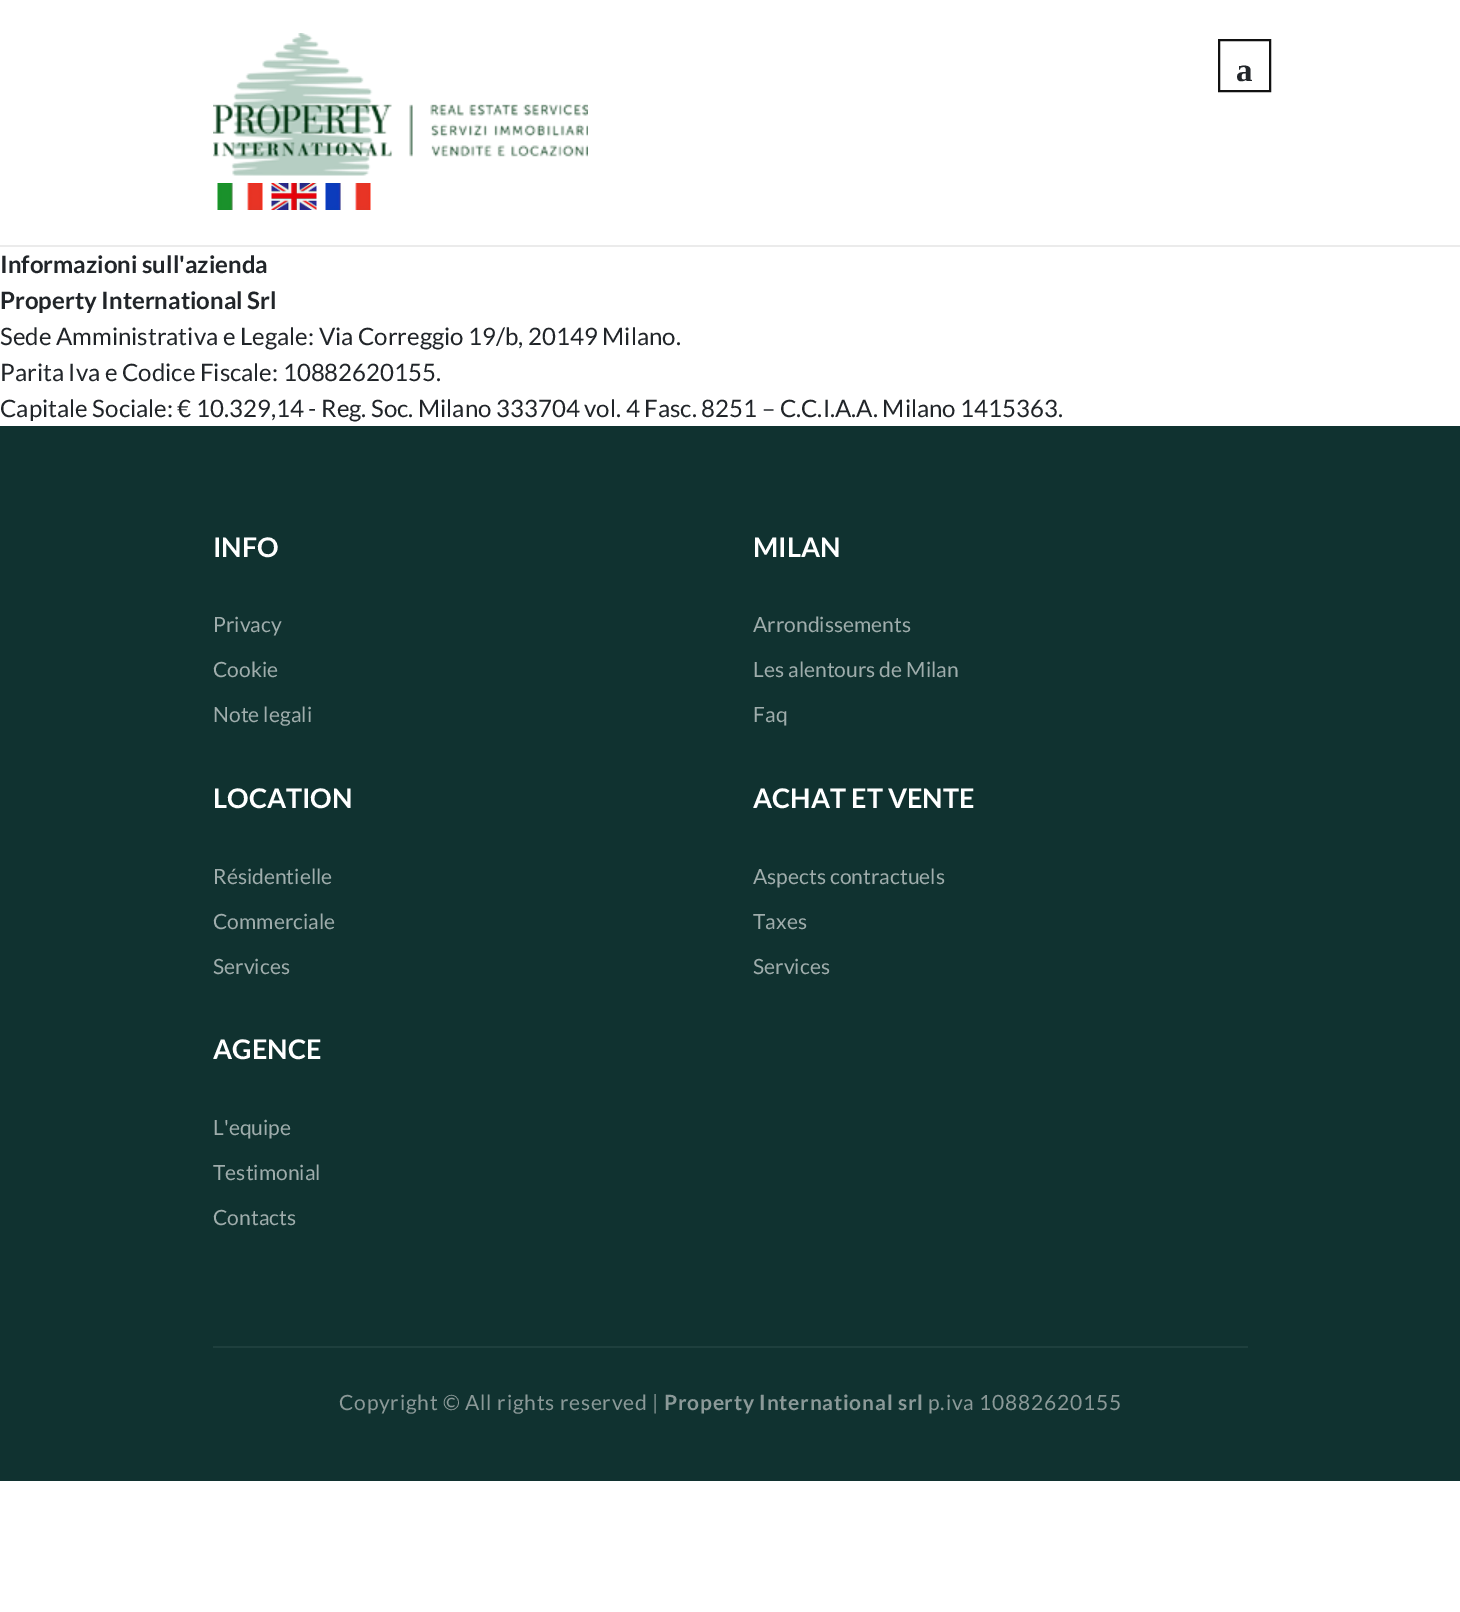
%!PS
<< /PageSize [1460 1612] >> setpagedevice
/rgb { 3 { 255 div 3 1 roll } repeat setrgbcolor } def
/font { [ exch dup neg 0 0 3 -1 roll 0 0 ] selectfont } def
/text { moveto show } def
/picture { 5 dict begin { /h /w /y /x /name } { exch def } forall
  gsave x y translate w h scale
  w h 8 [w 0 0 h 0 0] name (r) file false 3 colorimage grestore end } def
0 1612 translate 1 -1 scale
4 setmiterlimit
255 255 255 rgb
0 0 1460 1612 rectfill
235 235 235 rgb
0 245 1460 2 rectfill
(img_01.rgb) 213 33 375 143 picture
(img_02.rgb) 217 183 46 27 picture
(img_03.rgb) 271 183 46 27 picture
(img_04.rgb) 325 183 46 27 picture
17 17 17 rgb
2 setlinewidth
1219 40 51 51 rectstroke
16 50 48 rgb
0 426 1460 1055 rectfill
30 63 61 rgb
213 1346 1035 2 rectfill
/LiberationSerif-Bold 33 font
33 37 41 rgb
(a) 1236 81 text
/Lato-Bold 24 font
(Informazioni sull'azienda) 0 273 text
(Property International Srl) 0 309 text
/Lato-Regular 24 font
(Sede Amministrativa e Legale: Via Correggio 19/b, 20149 Milano.) 0 345 text
(Parita Iva e Codice Fiscale: 10882620155.) 0 381 text
(Capitale Sociale: € 10.329,14 - Reg. Soc. Milano 333704 vol. 4 Fasc. 8251 – C.C.I.A.A. Milano 1415363.) 0 417 text
/Lato-Bold 27 font
255 255 255 rgb
(INFO) 213 557 text
/Lato-Regular 21 font
159 173 172 rgb
(Privacy) 213 632 text
(Cookie) 213 677 text
(Note legali) 213 722 text
/Lato-Bold 27 font
255 255 255 rgb
(MILAN) 753 557 text
/Lato-Regular 21 font
159 173 172 rgb
(Arrondissements) 753 632 text
(Les alentours de Milan) 753 677 text
(Faq) 753 722 text
/Lato-Bold 27 font
255 255 255 rgb
(LOCATION) 213 808 text
/Lato-Regular 21 font
159 173 172 rgb
(Résidentielle) 213 884 text
(Commerciale) 213 929 text
(Services) 213 974 text
/Lato-Bold 27 font
255 255 255 rgb
(ACHAT ET VENTE) 753 808 text
/Lato-Regular 21 font
159 173 172 rgb
(Aspects contractuels) 753 884 text
(Taxes) 753 929 text
(Services) 753 974 text
/Lato-Bold 27 font
255 255 255 rgb
(AGENCE) 213 1059 text
/Lato-Regular 21 font
159 173 172 rgb
(L'equipe) 213 1135 text
(Testimonial) 213 1180 text
(Contacts) 213 1225 text
139 153 152 rgb
339 1410 moveto 0.75 0 (Copyright © All rights reserved |) ashow
/Lato-Bold 21 font
664 1410 moveto 0.75 0 (Property International srl) ashow
/Lato-Regular 21 font
928 1410 moveto 0.75 0 (p.iva 10882620155) ashow
showpage
